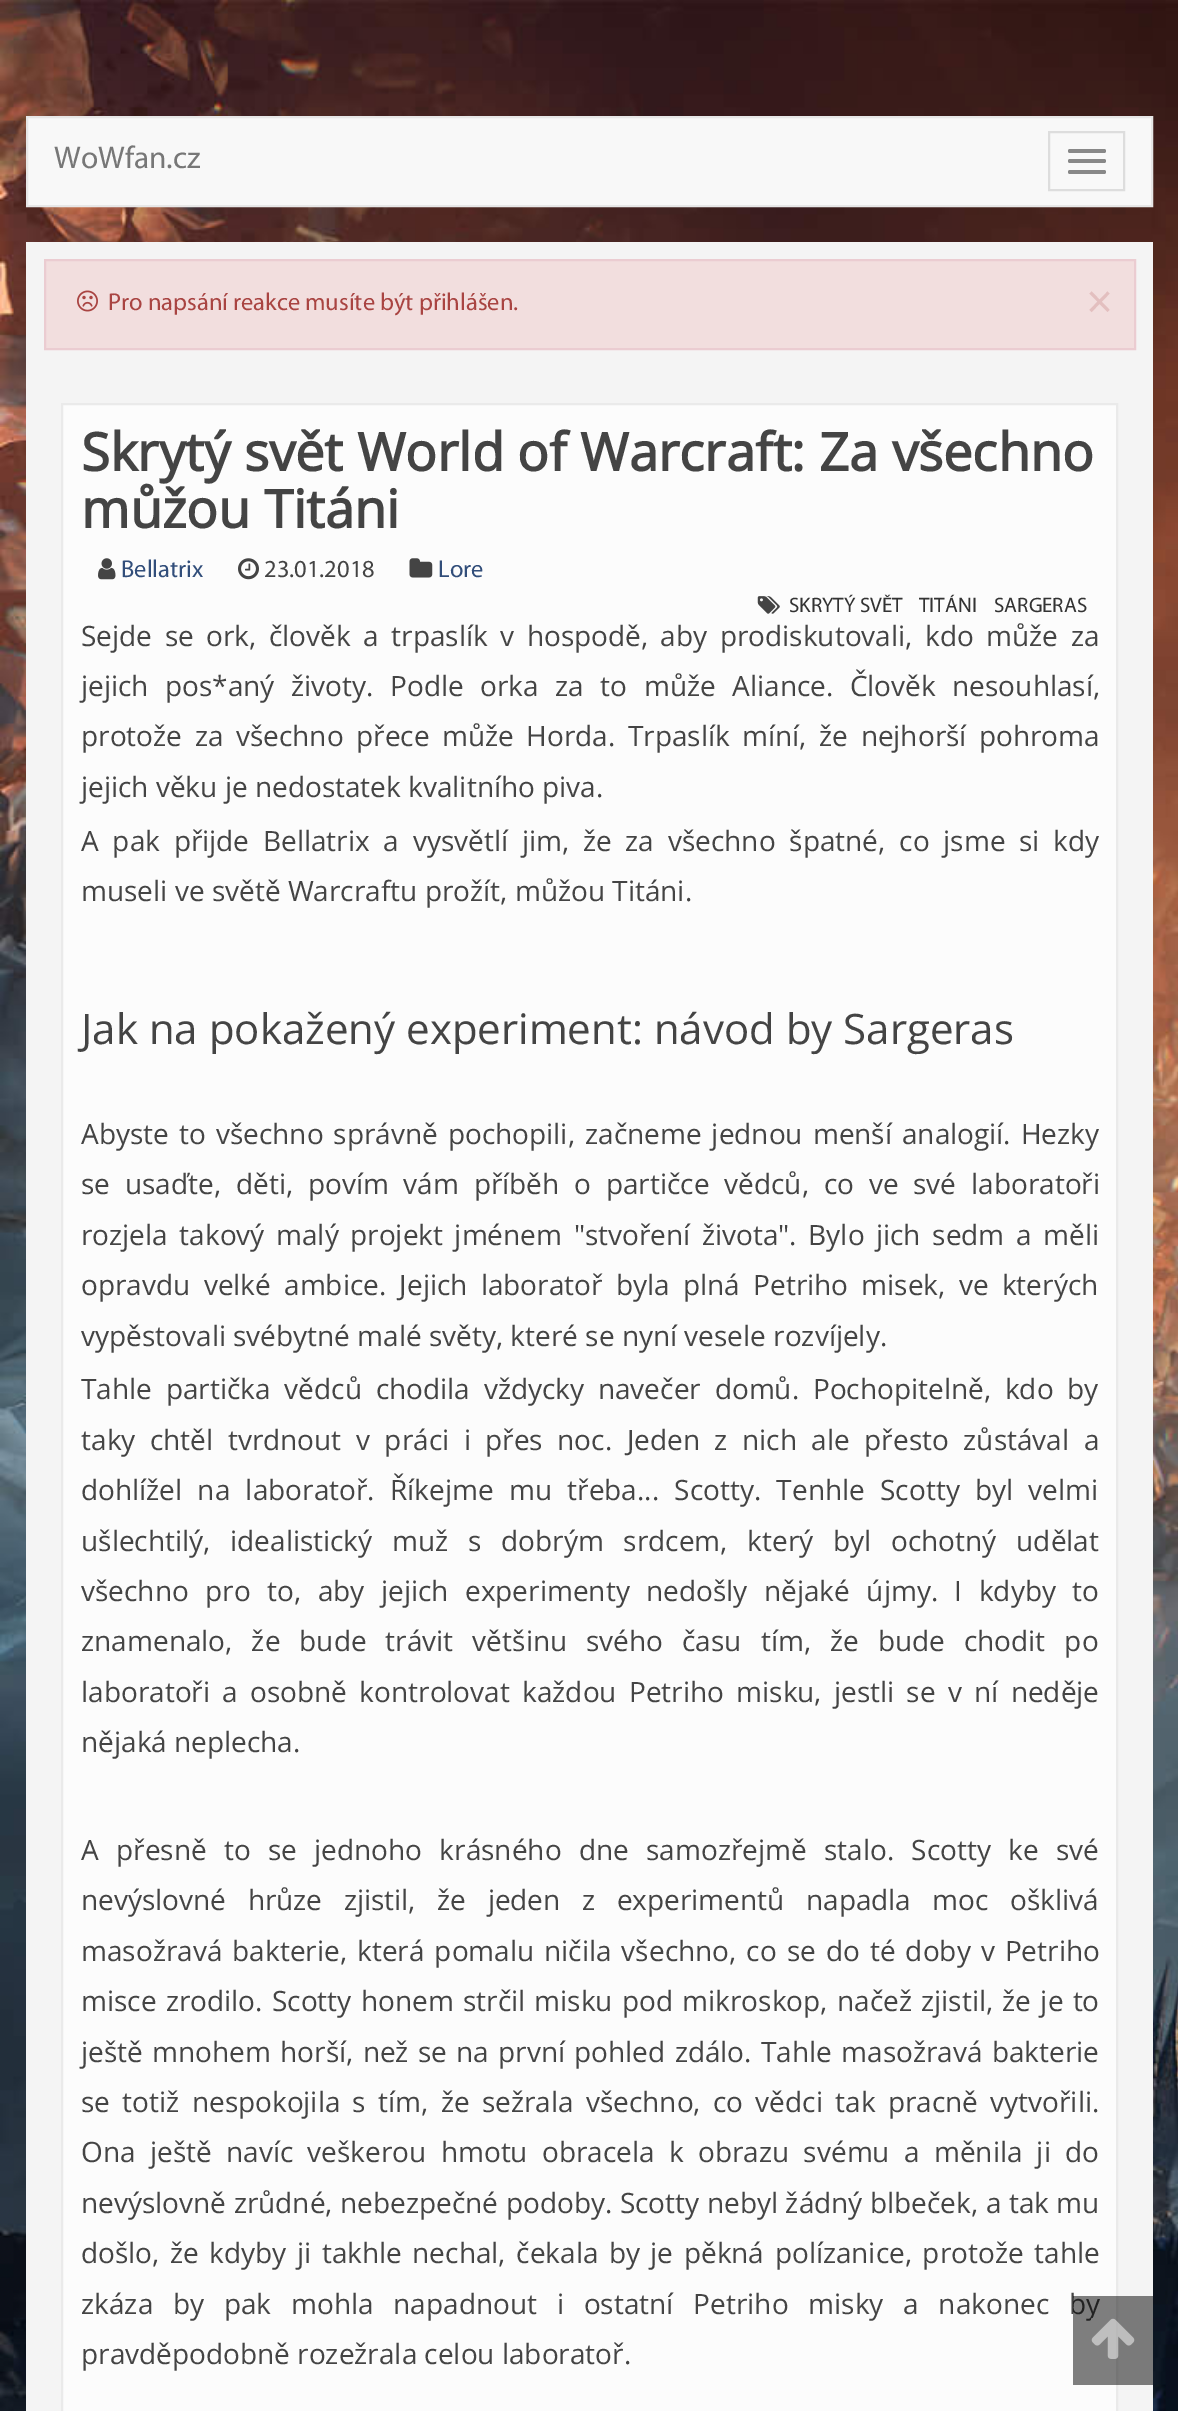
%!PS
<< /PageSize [1178 2411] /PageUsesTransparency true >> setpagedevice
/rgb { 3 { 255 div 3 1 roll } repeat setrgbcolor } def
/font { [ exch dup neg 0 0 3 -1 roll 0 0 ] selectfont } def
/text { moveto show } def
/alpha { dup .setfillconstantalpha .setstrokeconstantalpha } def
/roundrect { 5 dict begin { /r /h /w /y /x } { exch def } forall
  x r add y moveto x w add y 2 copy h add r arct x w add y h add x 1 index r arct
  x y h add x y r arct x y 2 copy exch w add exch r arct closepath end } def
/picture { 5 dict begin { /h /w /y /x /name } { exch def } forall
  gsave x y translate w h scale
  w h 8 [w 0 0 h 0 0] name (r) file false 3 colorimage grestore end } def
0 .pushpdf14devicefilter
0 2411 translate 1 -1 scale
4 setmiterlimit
255 255 255 rgb
0 0 1178 2411 rectfill
(img_01.rgb) 0 0 1178 2411 picture
248 248 248 rgb
27 117 moveto 1125 0 rlineto 0 89 rlineto -1125 0 rlineto closepath gsave fill grestore
231 231 231 rgb
2 setlinewidth
stroke
221 221 221 rgb
1049 132 75 58 rectstroke
136 136 136 rgb
1068 149 38 4 2 roundrect fill
1068 159 38 4 2 roundrect fill
1068 170 38 4 2 roundrect fill
244 244 244 rgb
26 242 1127 2169 rectfill
242 222 222 rgb
45 260 moveto 1090 0 rlineto 0 89 rlineto -1090 0 rlineto closepath gsave fill grestore
235 204 209 rgb
stroke
(img_02.rgb) 77 290 21 22 picture
252 252 252 rgb
62 404 moveto 1055 0 rlineto 0 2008 rlineto -1055 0 rlineto closepath gsave fill grestore
234 234 234 rgb
stroke
(img_03.rgb) 98 558 18 22 picture
(img_04.rgb) 238 558 21 22 picture
(img_05.rgb) 409 558 24 20 picture
(img_06.rgb) 757 596 23 18 picture
/Myriad-Regular 31.5 font
119 119 119 rgb
(WoWfan.cz) 54 168 text
/Myriad-Regular 24.5 font
169 68 66 rgb
(Pro napsání reakce musíte být přihlášen.) 108 310 text
/Myriad-Bold 37 font
227 191 191 rgb
(×) 1088 312 text
/OpenSans-Bold 52.5 font
68 68 68 rgb
(Skrytý svět World of Warcraft: Za všechno) 81 471 text
(můžou Titáni) 81 528 text
/Myriad-Regular 24.5 font
50 78 122 rgb
(Bellatrix) 121 577 text
68 68 68 rgb
(23.01.2018) 264 577 text
50 78 122 rgb
(Lore) 438 577 text
/Myriad-Regular 21 font
51 51 51 rgb
(SKRYTÝ SVĚT) 789 612 text
(TITÁNI) 919 612 text
(SARGERAS) 994 612 text
/OpenSans-Regular 28 font
68 68 68 rgb
81 646 moveto 5.25 0 32 (Sejde se ork, člověk a trpaslík v hospodě, aby prodiskutovali, kdo může za) widthshow
81 696 moveto 9.25 0 32 (jejich pos*aný životy. Podle orka za to může Aliance. Člověk nesouhlasí,) widthshow
81 746 moveto 5.25 0 32 (protože za všechno přece může Horda. Trpaslík míní, že nejhorší pohroma) widthshow
(jejich věku je nedostatek kvalitního piva.) 81 797 text
81 851 moveto 6.5 0 32 (A pak přijde Bellatrix a vysvětlí jim, že za všechno špatné, co jsme si kdy) widthshow
(museli ve světě Warcraftu prožít, můžou Titáni.) 81 901 text
/OpenSans-Regular 42 font
(Jak na pokažený experiment: návod by Sargeras) 81 1044 text
/OpenSans-Regular 28 font
81 1144 moveto 2.75 0 32 (Abyste to všechno správně pochopili, začneme jednou menší analogií. Hezky) widthshow
81 1194 moveto 7.5 0 32 (se usaďte, děti, povím vám příběh o partičce vědců, co ve své laboratoři) widthshow
81 1245 moveto 4.25 0 32 (rozjela takový malý projekt jménem "stvoření života". Bylo jich sedm a měli) widthshow
81 1295 moveto 6 0 32 (opravdu velké ambice. Jejich laboratoř byla plná Petriho misek, ve kterých) widthshow
(vypěstovali svébytné malé světy, které se nyní vesele rozvíjely.) 81 1346 text
81 1399 moveto 6.5 0 32 (Tahle partička vědců chodila vždycky navečer domů. Pochopitelně, kdo by) widthshow
81 1450 moveto 7.25 0 32 (taky chtěl tvrdnout v práci i přes noc. Jeden z nich ale přesto zůstával a) widthshow
81 1500 moveto 8 0 32 (dohlížel na laboratoř. Říkejme mu třeba... Scotty. Tenhle Scotty byl velmi) widthshow
81 1551 moveto 12.5 0 32 (ušlechtilý, idealistický muž s dobrým srdcem, který byl ochotný udělat) widthshow
81 1601 moveto 9.25 0 32 (všechno pro to, aby jejich experimenty nedošly nějaké újmy. I kdyby to) widthshow
81 1651 moveto 11.75 0 32 (znamenalo, že bude trávit většinu svého času tím, že bude chodit po) widthshow
81 1702 moveto 5 0 32 (laboratoři a osobně kontrolovat každou Petriho misku, jestli se v ní neděje) widthshow
(nějaká neplecha.) 81 1752 text
81 1860 moveto 10 0 32 (A přesně to se jednoho krásného dne samozřejmě stalo. Scotty ke své) widthshow
81 1910 moveto 14.25 0 32 (nevýslovné hrůze zjistil, že jeden z experimentů napadla moc ošklivá) widthshow
81 1961 moveto 2.75 0 32 (masožravá bakterie, která pomalu ničila všechno, co se do té doby v Petriho) widthshow
81 2011 moveto 2 0 32 (misce zrodilo. Scotty honem strčil misku pod mikroskop, načež zjistil, že je to) widthshow
81 2062 moveto 2 0 32 (ještě mnohem horší, než se na první pohled zdálo. Tahle masožravá bakterie) widthshow
81 2112 moveto 5 0 32 (se totiž nespokojila s tím, že sežrala všechno, co vědci tak pracně vytvořili.) widthshow
81 2162 moveto 7 0 32 (Ona ještě navíc veškerou hmotu obracela k obrazu svému a měnila ji do) widthshow
81 2213 moveto 0.25 0 32 (nevýslovně zrůdné, nebezpečné podoby. Scotty nebyl žádný blbeček, a tak mu) widthshow
81 2263 moveto 3.25 0 32 (došlo, že kdyby ji takhle nechal, čekala by je pěkná polízanice, protože tahle) widthshow
81 2314 moveto 12.5 0 32 (zkáza by pak mohla napadnout i ostatní Petriho misky a nakonec by) widthshow
(pravděpodobně rozežrala celou laboratoř.) 81 2364 text
0.5 alpha
0 0 0 rgb
1073 2296 80 89 rectfill
1 alpha
(img_07.rgb) 1091 2318 44 41 picture
.poppdf14devicefilter showpage
